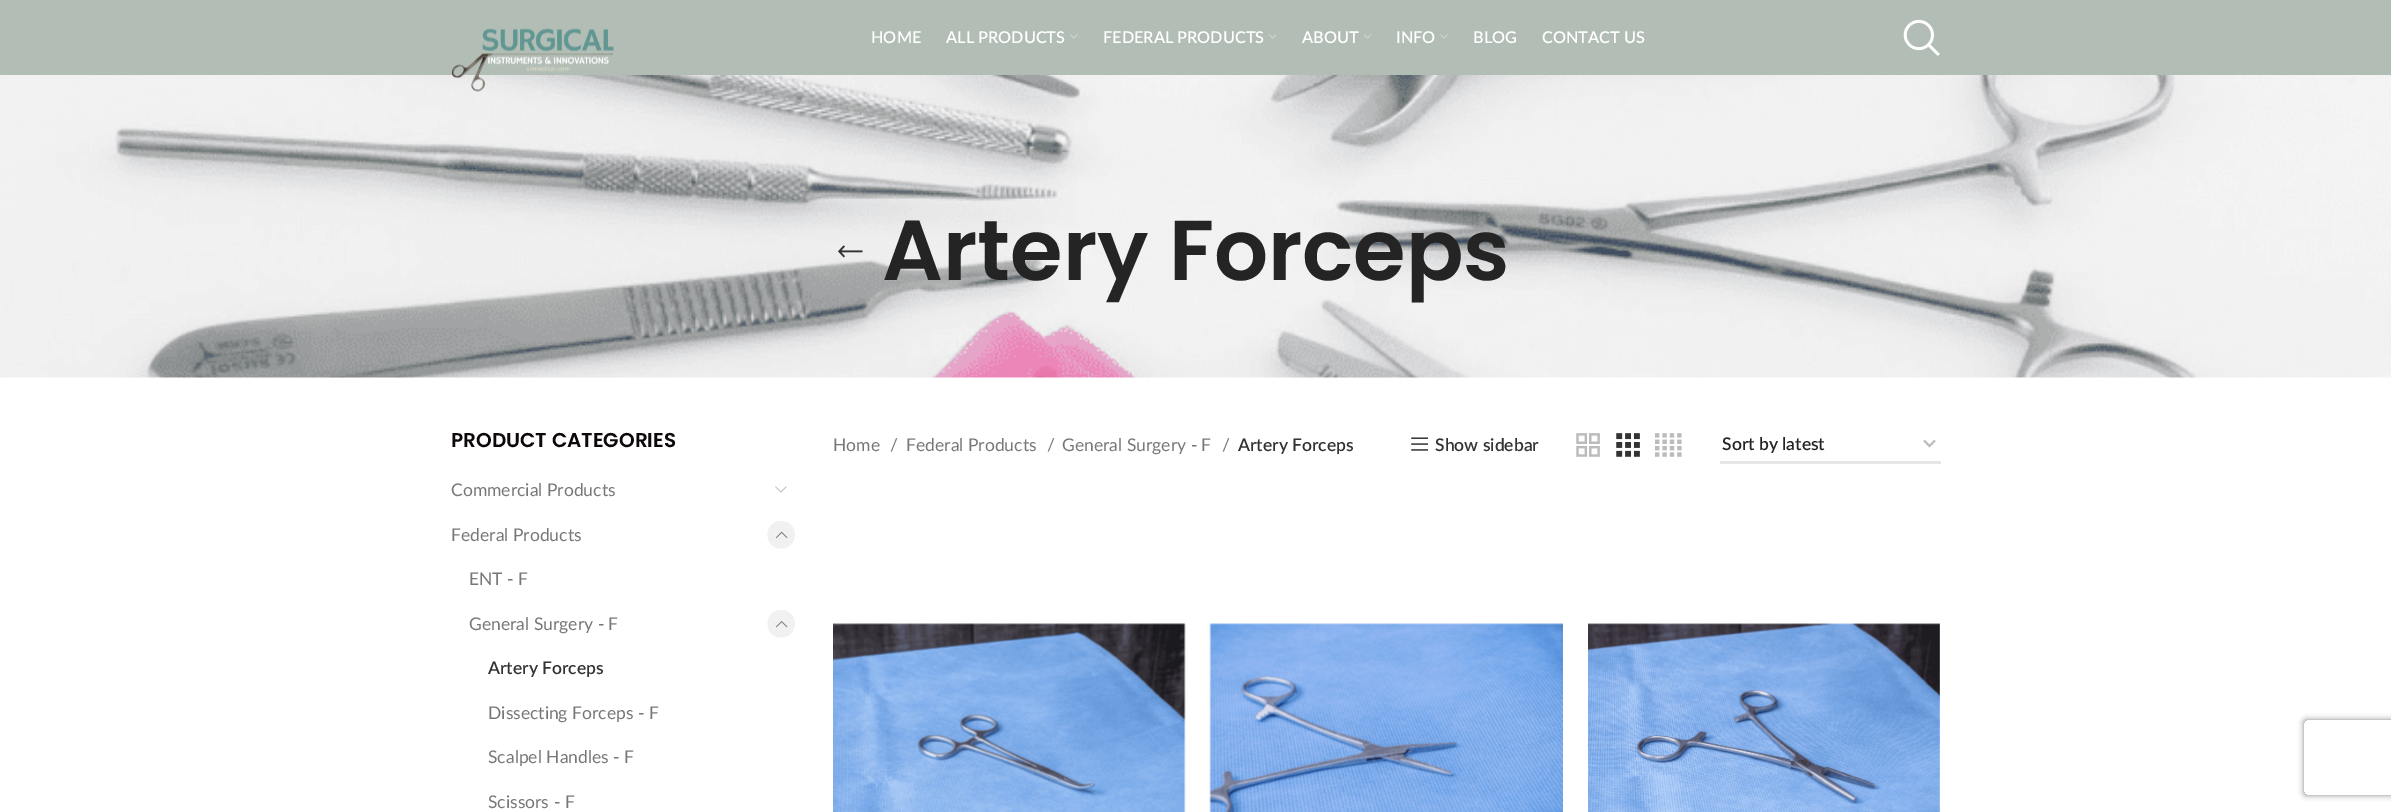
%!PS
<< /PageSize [2391 812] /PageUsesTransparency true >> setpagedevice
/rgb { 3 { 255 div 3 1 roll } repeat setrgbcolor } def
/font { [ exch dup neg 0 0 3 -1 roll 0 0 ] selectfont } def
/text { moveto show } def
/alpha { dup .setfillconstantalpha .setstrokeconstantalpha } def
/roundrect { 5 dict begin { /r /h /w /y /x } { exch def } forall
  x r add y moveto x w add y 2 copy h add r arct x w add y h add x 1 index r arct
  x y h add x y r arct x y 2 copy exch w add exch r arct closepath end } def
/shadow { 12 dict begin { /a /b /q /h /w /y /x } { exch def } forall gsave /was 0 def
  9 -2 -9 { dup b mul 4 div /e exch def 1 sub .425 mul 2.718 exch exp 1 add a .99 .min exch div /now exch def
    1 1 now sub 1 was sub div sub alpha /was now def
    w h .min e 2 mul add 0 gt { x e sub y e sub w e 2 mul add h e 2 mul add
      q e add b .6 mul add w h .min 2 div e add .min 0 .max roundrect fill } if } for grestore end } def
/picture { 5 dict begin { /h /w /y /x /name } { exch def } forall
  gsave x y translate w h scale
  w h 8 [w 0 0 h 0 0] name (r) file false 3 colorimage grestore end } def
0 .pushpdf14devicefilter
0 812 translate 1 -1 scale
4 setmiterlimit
255 255 255 rgb
0 0 2391 812 rectfill
178 190 181 rgb
0 0 2391 75 rectfill
(img_06.rgb) 0 75 2391 303 picture
(img_01.rgb) 451 28 163 64 picture
(img_02.rgb) 1070 34 8 5 picture
(img_03.rgb) 1269 34 7 5 picture
(img_04.rgb) 1364 34 8 5 picture
(img_02.rgb) 1440 34 8 5 picture
(img_05.rgb) 1903 19 37 37 picture
(img_07.rgb) 838 245 25 13 picture
(img_08.rgb) 775 486 12 7 picture
241 241 241 rgb
781 548.5 moveto -18 0 -18 -27.5 0 -27.5 rcurveto 18.5 0 18.5 27.5 0 27.5 rcurveto closepath fill
(img_09.rgb) 776 531 12 7 picture
781 637.5 moveto -18 0 -18 -27.5 0 -27.5 rcurveto 18.5 0 18.5 27.5 0 27.5 rcurveto closepath fill
(img_10.rgb) 776 621 12 7 picture
(img_11.rgb) 1411 437 18 14 picture
(img_12.rgb) 1576 433 24 24 picture
(img_13.rgb) 1616 433 24 24 picture
(img_14.rgb) 1655 433 27 24 picture
187 187 187 rgb
1.8 setlinewidth
1924 440.5 moveto 5.5 5.5 rlineto 5.5 -5.5 rlineto stroke
230 230 230 rgb
1720 461 221 3 rectfill
(img_15.rgb) 833 623 353 189 picture
(img_16.rgb) 1209 623 354 189 picture
(img_17.rgb) 1588 623 352 189 picture
gsave
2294 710 moveto 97 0 rlineto 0 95 rlineto -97 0 rlineto closepath 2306.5 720 moveto 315 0 rlineto 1.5 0 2.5 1 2.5 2.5 rcurveto 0 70 rlineto 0 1.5 -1 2.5 -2.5 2.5 rcurveto -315 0 rlineto -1.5 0 -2.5 -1 -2.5 -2.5 rcurveto 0 -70 rlineto 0 -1.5 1 -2.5 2.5 -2.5 rcurveto closepath eoclip newpath
128 128 128 rgb
2304 720 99 75 2.5 3 1 shadow
grestore
/Lato-SemiBold 16.25 font
255 255 255 rgb
(HOME) 871 43 text
(ALL PRODUCTS) 946 43 text
(FEDERAL PRODUCTS) 1103 43 text
(ABOUT) 1302 43 text
(INFO) 1396 43 text
(BLOG) 1473 43 text
(CONTACT US) 1542 43 text
/Poppins-SemiBold 85 font
36 36 36 rgb
(Artery Forceps) 882 280 text
/Poppins-SemiBold 20 font
15 8 8 rgb
(PRODUCT CATEGORIES) 451 447 text
/Lato-Regular 17.5 font
119 119 119 rgb
(Commercial Products) 451 496 text
(Federal Products) 451 541 text
(ENT - F) 469 585 text
(General Surgery - F) 469 630 text
/Lato-SemiBold 17.5 font
51 51 51 rgb
(Artery Forceps) 488 674 text
/Lato-Regular 17.5 font
119 119 119 rgb
(Dissecting Forceps - F) 488 719 text
(Scalpel Handles - F) 488 763 text
(Scissors - F) 488 808 text
(Home) 833 451 text
(/) 890 451 text
(Federal Products) 906 451 text
(/) 1047 451 text
(General Surgery - F) 1062 451 text
(/) 1222 451 text
/Lato-SemiBold 17.5 font
51 51 51 rgb
(Artery Forceps) 1238 451 text
(Show sidebar) 1435 451 text
36 36 36 rgb
(Sort by latest) 1722 450 text
.poppdf14devicefilter showpage
